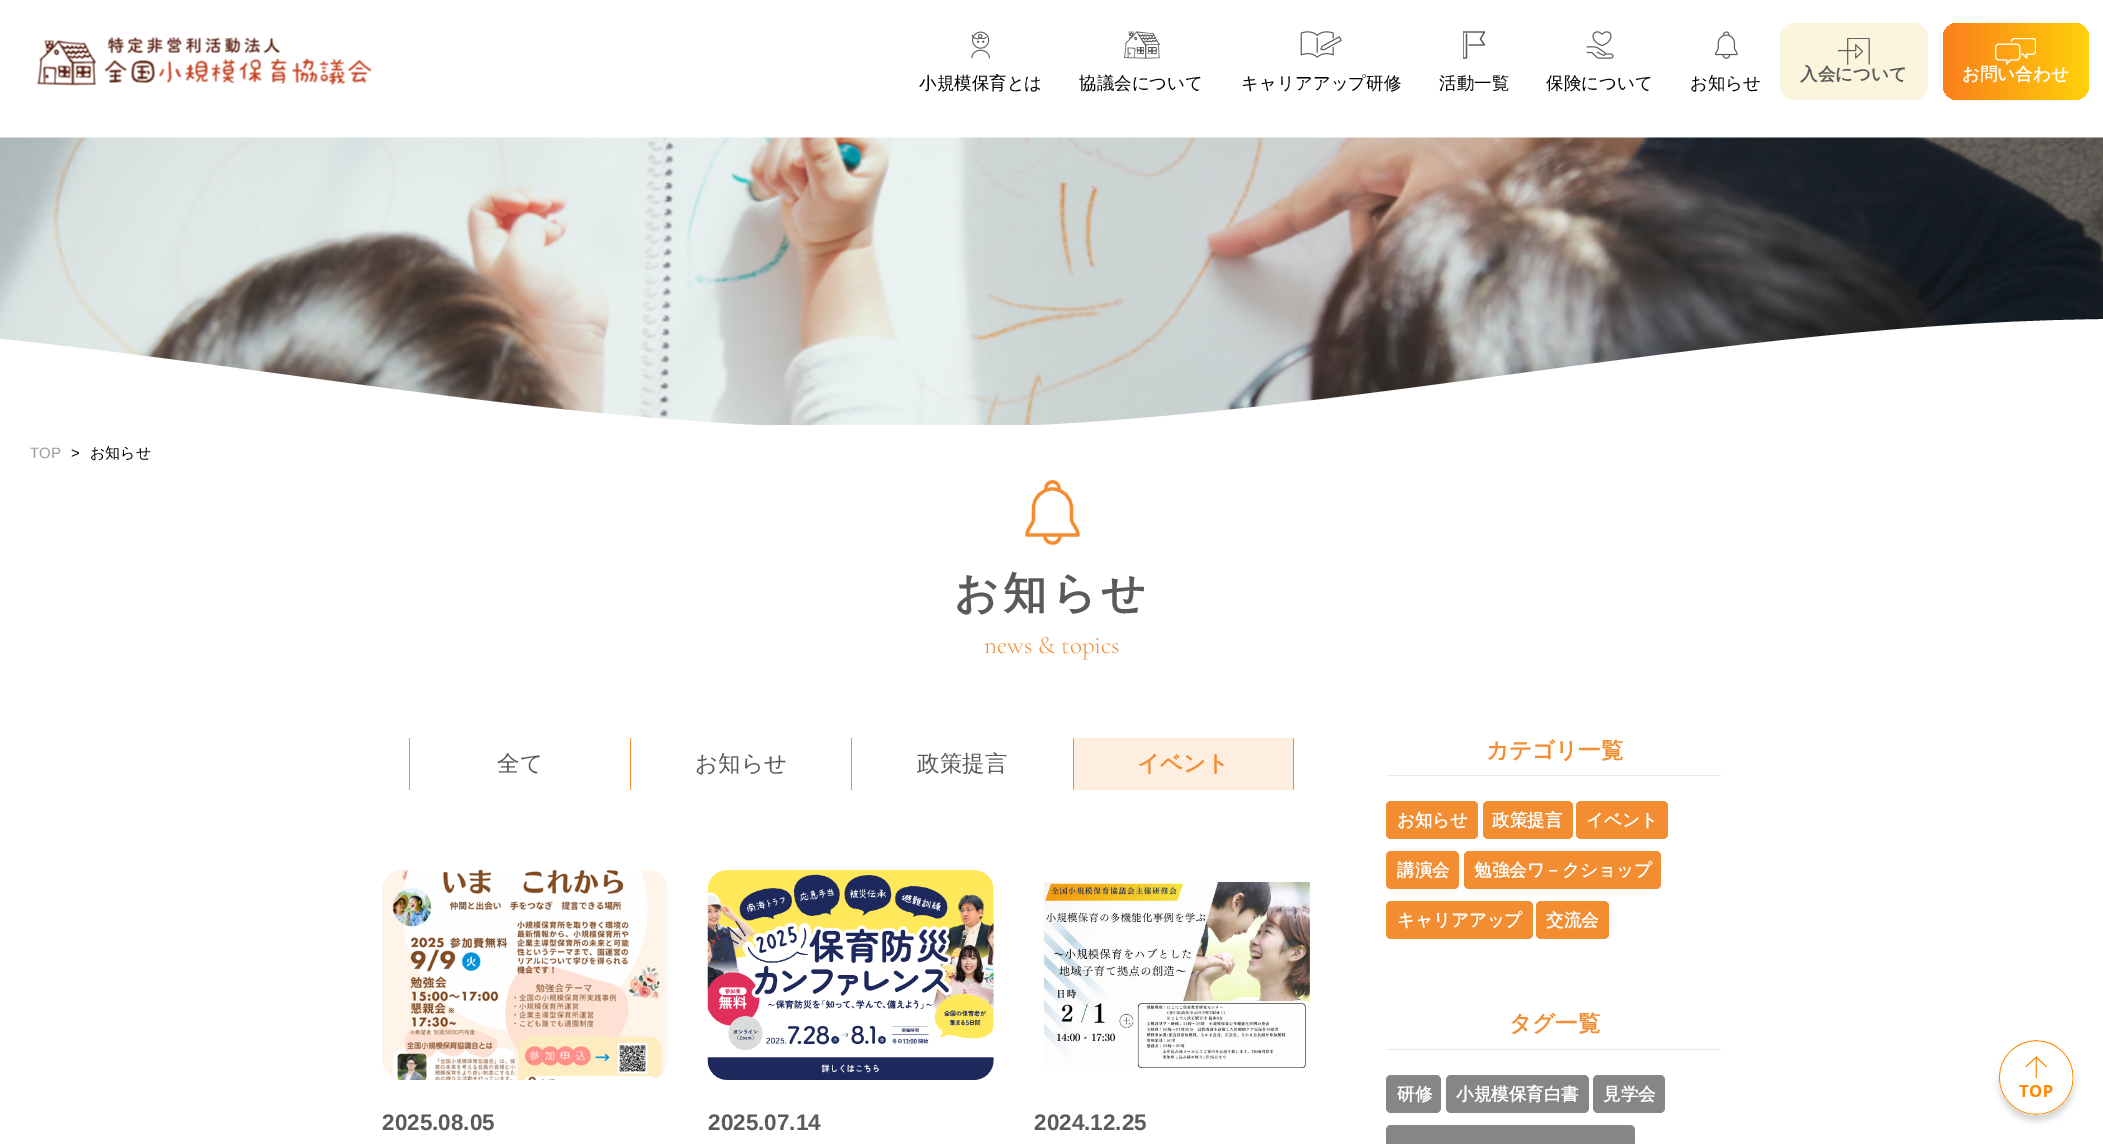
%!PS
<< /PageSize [2103 1144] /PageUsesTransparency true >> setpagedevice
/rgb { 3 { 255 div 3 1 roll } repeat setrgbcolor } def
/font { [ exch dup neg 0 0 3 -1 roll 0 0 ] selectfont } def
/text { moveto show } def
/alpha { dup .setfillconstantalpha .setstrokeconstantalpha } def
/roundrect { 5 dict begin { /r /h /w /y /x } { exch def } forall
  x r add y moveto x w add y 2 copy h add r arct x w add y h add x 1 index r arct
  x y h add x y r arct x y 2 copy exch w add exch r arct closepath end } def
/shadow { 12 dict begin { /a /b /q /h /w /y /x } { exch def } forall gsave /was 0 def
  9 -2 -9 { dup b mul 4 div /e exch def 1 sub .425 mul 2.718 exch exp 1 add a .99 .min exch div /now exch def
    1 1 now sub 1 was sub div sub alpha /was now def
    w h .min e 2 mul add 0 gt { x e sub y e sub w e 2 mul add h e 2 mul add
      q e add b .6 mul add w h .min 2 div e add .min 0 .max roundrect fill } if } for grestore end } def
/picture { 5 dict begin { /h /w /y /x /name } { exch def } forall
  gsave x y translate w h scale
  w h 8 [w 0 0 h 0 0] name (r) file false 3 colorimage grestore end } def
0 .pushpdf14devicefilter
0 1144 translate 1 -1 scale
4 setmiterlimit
255 255 255 rgb
0 0 2103 1144 rectfill
(img_01.rgb) 37 37 335 49 picture
(img_02.rgb) 971 31 19 28 picture
(img_03.rgb) 1124 31 36 28 picture
(img_04.rgb) 1300 31 42 27 picture
gsave
1463 31 22 28 rectclip
90 90 90 rgb
1.2 setlinewidth
1 setlinecap
1 setlinejoin
1469 45 moveto 15.5 0 rlineto -4 -6 rlineto 4 -7 rlineto -21.5 0 rlineto 0 26 rlineto 3.5 0 rlineto 0 -24 rlineto stroke
grestore
(img_05.rgb) 1586 31 28 28 picture
(img_06.rgb) 1715 31 23 28 picture
250 245 220 rgb
1780 23 148 77 15 roundrect fill
(img_07.rgb) 1838 38 32 27 picture
gsave 1943 23 146 77 15 roundrect clip newpath
<< /ShadingType 2 /ColorSpace /DeviceRGB /Coords [1943 61 2089 61] /Extend [true true] /Function << /FunctionType 2 /Domain [0 1] /C0 [0.984 0.494 0.106] /C1 [1 0.824 0.035] /N 1 >> >> shfill grestore
(img_08.rgb) 1995 38 41 27 picture
(img_09.rgb) 0 137 2103 288 picture
gsave
0 264 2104 162 rectclip
255 255 255 rgb
-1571 429 moveto 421 0 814 -110 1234 -110 rcurveto 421 0 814 110 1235 110 rcurveto 420 0 813 -110 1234 -110 rcurveto 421 0 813 110 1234 110 rcurveto 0 270 rlineto -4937 0 rlineto closepath fill
grestore
242 141 50 rgb
3.2 setlinewidth
1 setlinecap
1 setlinejoin
1046 488.5 moveto 0 -9 13 -9 13 0 rcurveto 1052.5 489 moveto -10.5 0 -19 8.5 -19 19 rcurveto 0 11 rlineto 0 5.5 -6.5 9 -6.5 16 rcurveto 51 0 rlineto 0 -7 -6.5 -10.5 -6.5 -16 rcurveto 0 -11 rlineto 0 -10.5 -8.5 -19 -19 -19 rcurveto closepath stroke
1060 536 moveto 0 9.5 -15 9.5 -15 0 rcurveto stroke
409 738 1 52 rectfill
630 738 1 52 rectfill
851 738 1 52 rectfill
1293 738 1 52 rectfill
1073 738 1 52 rectfill
253 238 224 rgb
1074 738 219 52 rectfill
(img_10.rgb) 382 870 286 210 picture
(img_11.rgb) 707 870 287 210 picture
(img_12.rgb) 1043 881 268 187 picture
234 234 234 rgb
1386 775 335 1 rectfill
242 141 50 rgb
1386 801 92 38 5 roundrect fill
1483 801 90 38 5 roundrect fill
1576 801 92 38 5 roundrect fill
1386 851 73 38 5 roundrect fill
1464 851 197 38 5 roundrect fill
1386 901 147 38 5 roundrect fill
1536 901 73 38 5 roundrect fill
234 234 234 rgb
1386 1049 335 1 rectfill
134 134 134 rgb
1386 1075 55 38 5 roundrect fill
1446 1075 143 38 5 roundrect fill
1593 1075 72 38 5 roundrect fill
1386 1125 249 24 5 roundrect fill
0 0 0 rgb
1999 1046 75 75 37.5 3 0.16 shadow
(img_13.rgb) 1999 1040 75 75 picture
/WenQuanYiZenHei-Medium 17.5 font
(小規模保育とは) 919 89 text
(協議会について) 1079 89 text
(キャリアアップ研修) 1241 89 text
(活動一覧) 1439 89 text
(保険について) 1546 89 text
(お知らせ) 1690 89 text
/WenQuanYiZenHei-Bold 17.5 font
90 90 90 rgb
(入会について) 1800 80 text
255 255 255 rgb
(お問い合わせ) 1962 80 text
/LiberationSans-Regular 15 font
155 155 155 rgb
(TOP) 30 458 text
0 0 0 rgb
(>) 71 458 text
/WenQuanYiZenHei-Medium 15 font
(お知らせ) 90 458 text
/WenQuanYiZenHei-Bold 43.75 font
90 90 90 rgb
954 608 moveto 4.5 0 (お知らせ) ashow
/CormorantGaramond-Light 25 font
242 141 50 rgb
(news & topics) 984 653 text
/WenQuanYiZenHei-Medium 22.5 font
90 90 90 rgb
(全て) 497 771 text
(お知らせ) 695 771 text
(政策提言) 917 771 text
/WenQuanYiZenHei-Bold 22.5 font
242 141 50 rgb
(イベント) 1137 771 text
/LiberationSans-Bold 22.5 font
90 90 90 rgb
(2025.08.05) 382 1130 text
(2025.07.14) 708 1130 text
(2024.12.25) 1034 1130 text
/WenQuanYiZenHei-Bold 22.5 font
242 141 50 rgb
(カテゴリ一覧) 1486 758 text
/WenQuanYiZenHei-Bold 17.5 font
255 255 255 rgb
(お知らせ) 1397 826 text
(政策提言) 1492 826 text
(イベント) 1586 826 text
(講演会) 1397 876 text
(勉強会ワ－クショップ) 1474 876 text
(キャリアアップ) 1397 926 text
(交流会) 1546 926 text
/WenQuanYiZenHei-Bold 22.5 font
242 141 50 rgb
(タグ一覧) 1509 1031 text
/WenQuanYiZenHei-Bold 17.5 font
255 255 255 rgb
(研修) 1397 1100 text
(小規模保育白書) 1456 1100 text
(見学会) 1603 1100 text
.poppdf14devicefilter showpage
